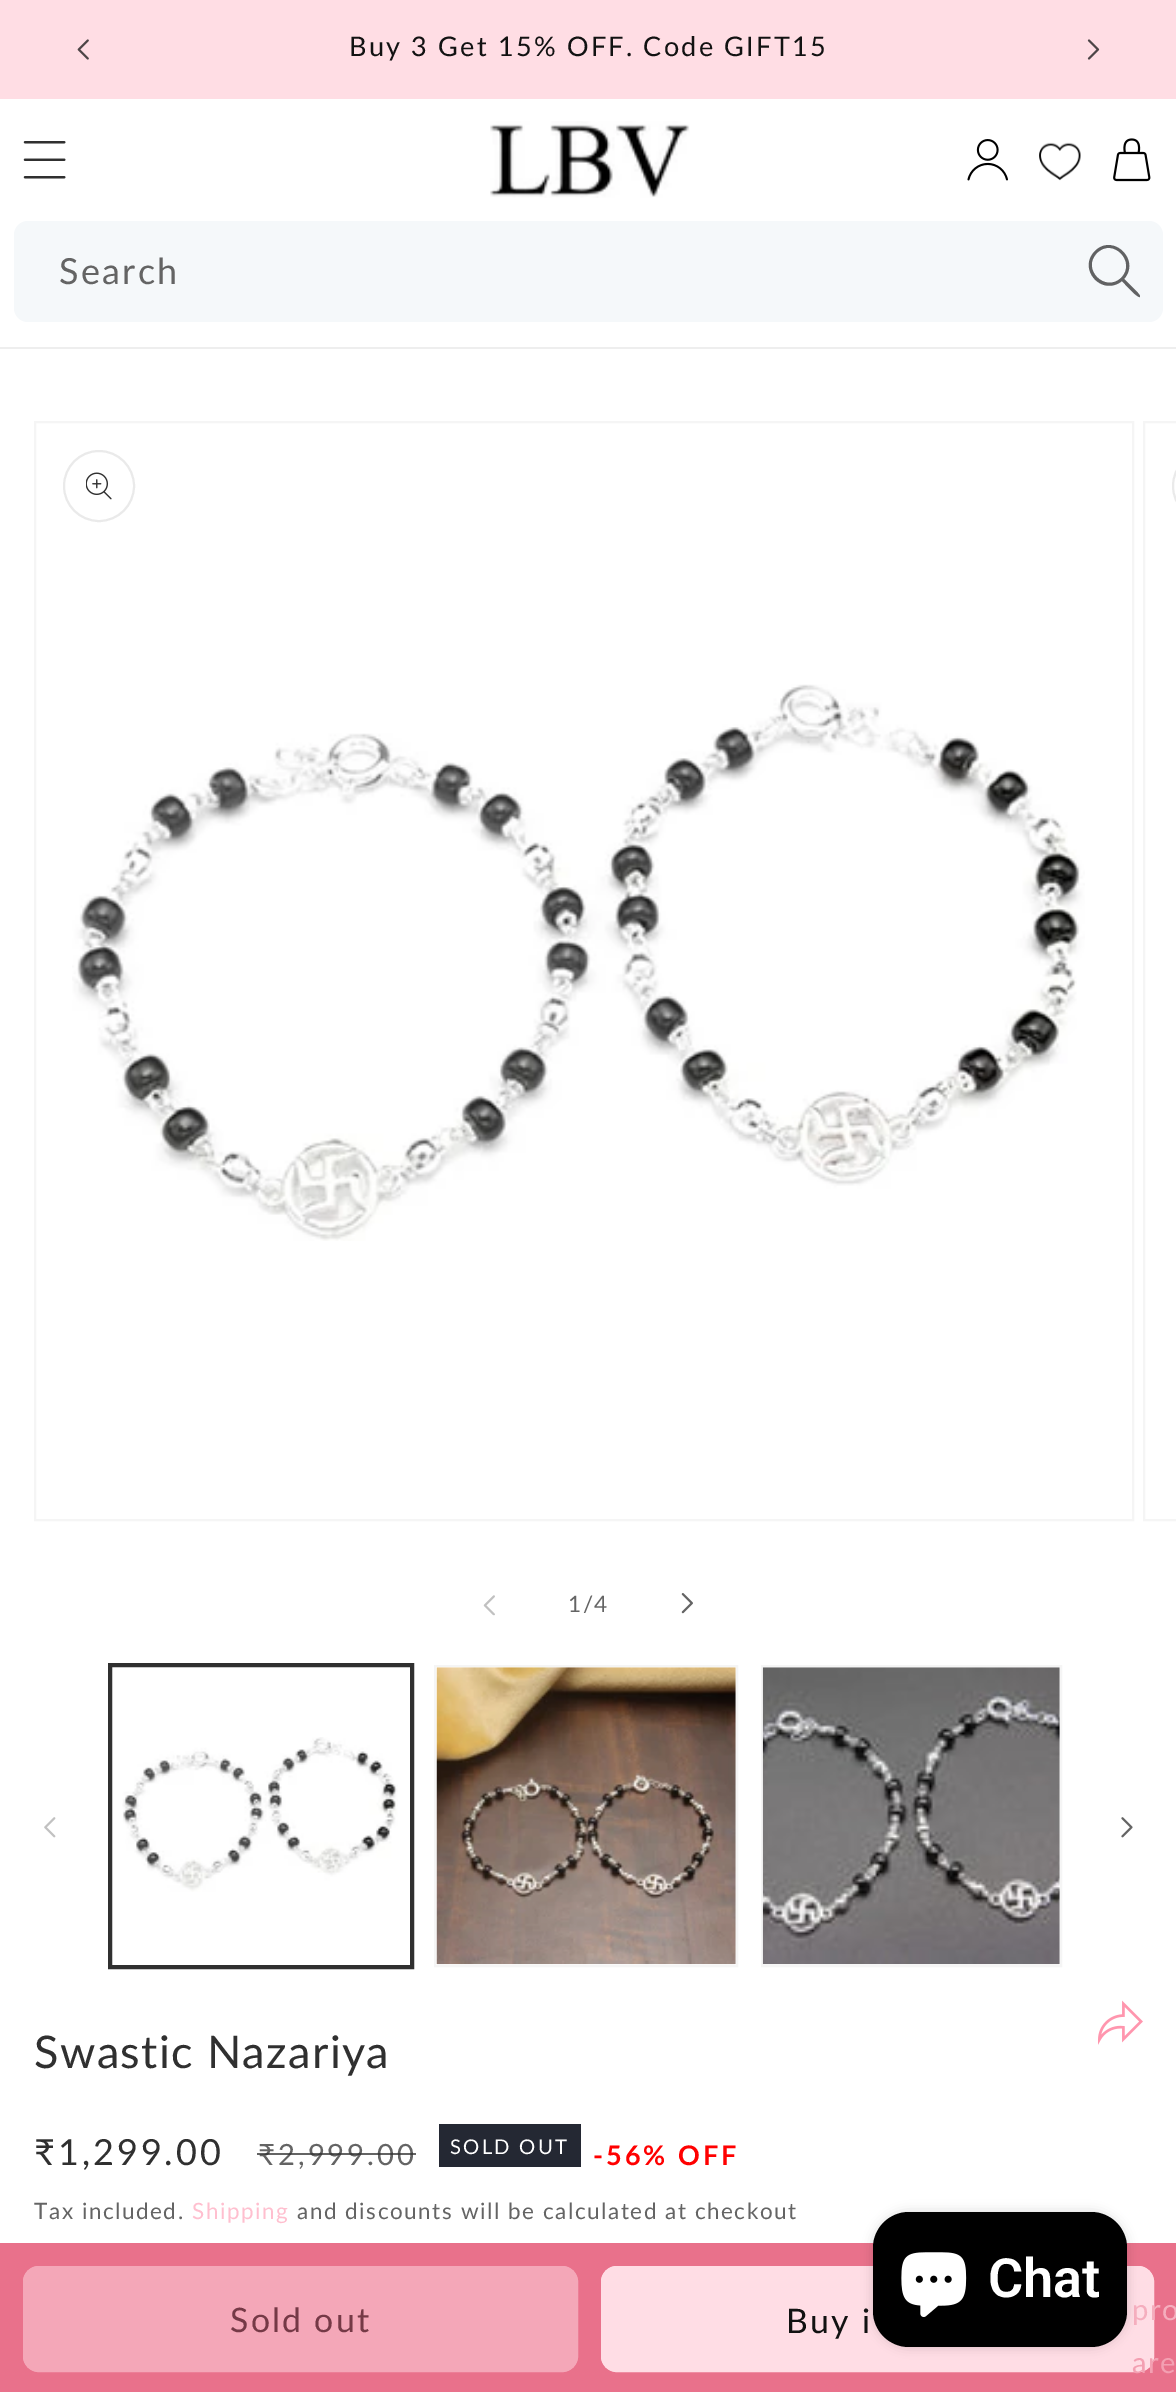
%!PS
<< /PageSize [1176 2392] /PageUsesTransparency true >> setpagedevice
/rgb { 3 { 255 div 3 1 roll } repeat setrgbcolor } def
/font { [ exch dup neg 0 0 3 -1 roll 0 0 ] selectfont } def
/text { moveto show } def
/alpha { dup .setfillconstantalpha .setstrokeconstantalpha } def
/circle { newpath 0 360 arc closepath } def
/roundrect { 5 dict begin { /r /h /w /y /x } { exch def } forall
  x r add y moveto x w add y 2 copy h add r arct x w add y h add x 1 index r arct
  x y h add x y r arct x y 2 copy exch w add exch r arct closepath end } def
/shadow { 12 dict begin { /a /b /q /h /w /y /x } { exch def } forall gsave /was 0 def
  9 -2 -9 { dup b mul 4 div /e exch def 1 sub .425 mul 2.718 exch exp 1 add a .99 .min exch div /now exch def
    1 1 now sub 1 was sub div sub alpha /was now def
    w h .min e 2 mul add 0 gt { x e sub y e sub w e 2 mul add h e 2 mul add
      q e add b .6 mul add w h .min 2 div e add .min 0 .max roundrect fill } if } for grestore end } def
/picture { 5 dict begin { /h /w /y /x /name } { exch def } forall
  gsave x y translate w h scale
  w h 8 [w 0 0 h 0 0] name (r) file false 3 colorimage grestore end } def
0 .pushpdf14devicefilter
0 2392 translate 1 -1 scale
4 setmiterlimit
255 255 255 rgb
0 0 1176 2392 rectfill
255 221 228 rgb
0 0 1176 99 rectfill
(img_01.rgb) 77 39 12 21 picture
(img_02.rgb) 1087 39 13 21 picture
238 238 238 rgb
0 347 1176 2 rectfill
(img_03.rgb) 23 141 43 38 picture
(img_04.rgb) 490 121 200 77 picture
(img_05.rgb) 967 139 41 42 picture
(img_06.rgb) 1039 142 42 39 picture
(img_07.rgb) 1113 138 38 44 picture
245 248 250 rgb
14 221 1149 101 14 roundrect fill
97 98 99 rgb
1121 278 moveto -16 15 -40 -9 -24 -25 rcurveto 16 -16 40 9 24 25 rcurveto closepath 1122 281 moveto -20 16 -45 -12 -27 -30 rcurveto 18 -18 46 9 29 28 rcurveto 2 2 16 15 16 17 rcurveto 0 1 rlineto -3 1 -16 -14 -18 -16 rcurveto closepath eofill
245 245 245 rgb
2 setlinewidth
35 422 1098 1098 rectstroke
234 234 234 rgb
99 486 35 circle stroke
(img_08.rgb) 86 472 26 28 picture
(img_09.rgb) 72 684 1013 557 picture
245 245 245 rgb
1144 422 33 1098 rectstroke
234 234 234 rgb
1173 451 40 70 35 roundrect stroke
(img_10.rgb) 483 1595 12 21 picture
(img_11.rgb) 681 1593 12 21 picture
(img_12.rgb) 44 1817 12 21 picture
48 48 48 rgb
109 1664 304 304 rectstroke
111 1666 300 300 rectstroke
(img_13.rgb) 122 1737 276 155 picture
245 245 245 rgb
435 1666 302 300 rectstroke
(img_14.rgb) 436 1667 300 298 picture
762 1666 299 300 rectstroke
(img_15.rgb) 762 1667 298 298 picture
(img_16.rgb) 1121 1817 12 21 picture
(img_17.rgb) 1098 2000 45 45 picture
36 40 51 rgb
439 2124 142 43 rectfill
233 113 139 rgb
0 2243 1176 149 rectfill
244 167 184 rgb
23 2266 555 106 16 roundrect fill
24 2267 553 104 15 roundrect stroke
255 221 229 rgb
601 2266 553 106 16 roundrect fill
602 2267 551 104 15 roundrect stroke
0 0 0 rgb
873 2212 254 135 36 5.5 0.15 shadow
873 2212 254 135 36 roundrect fill
(img_18.rgb) 901 2252 66 65 picture
/Lato-Regular 27 font
18 18 18 rgb
349 56 moveto 2.25 0 (Buy 3 Get 15% OFF. Code GIFT15) ashow
/Lato-Regular 36 font
100 100 100 rgb
59 284 moveto 2.25 0 (Search) ashow
/Lato-Regular 22.5 font
568 1612 moveto 1.55 0 (1/4) ashow
/Lato-Regular 45 font
48 48 48 rgb
34 2068 moveto 1.4 0 (Swastic Nazariya) ashow
/Lato-Regular 36 font
34 2165 moveto 3 0 (₹1,299.00) ashow
/Lato-Regular 29.25 font
100 100 100 rgb
258 2165 moveto 3 0 (₹2,999.00) ashow
0.75 alpha
48 48 48 rgb
257 2153 159 2 rectfill
/Lato-Regular 20.25 font
1 alpha
255 255 255 rgb
450 2154 moveto 2.25 0 (SOLD OUT) ashow
/Lato-Bold 27 font
255 0 0 rgb
593 2165 moveto 3 0 (-56% OFF) ashow
/Lato-Regular 22.5 font
100 100 100 rgb
34 2219 moveto 1.55 0 (Tax included.) ashow
255 191 207 rgb
192 2219 moveto 1.55 0 (Shipping) ashow
100 100 100 rgb
297 2219 moveto 1.55 0 (and discounts will be calculated at checkout) ashow
/Lato-Regular 33.75 font
117 57 70 rgb
230 2332 moveto 2.25 0 (Sold out) ashow
18 18 18 rgb
786 2333 moveto 2.25 0 (Buy i) ashow
/Roboto-SemiBold 54 font
255 255 255 rgb
(Chat) 988 2297 text
/Lato-Regular 29.25 font
245 174 190 rgb
1132 2320 moveto 1.4 0 (pro) ashow
243 160 178 rgb
1132 2373 moveto 1.4 0 (are) ashow
.poppdf14devicefilter showpage
